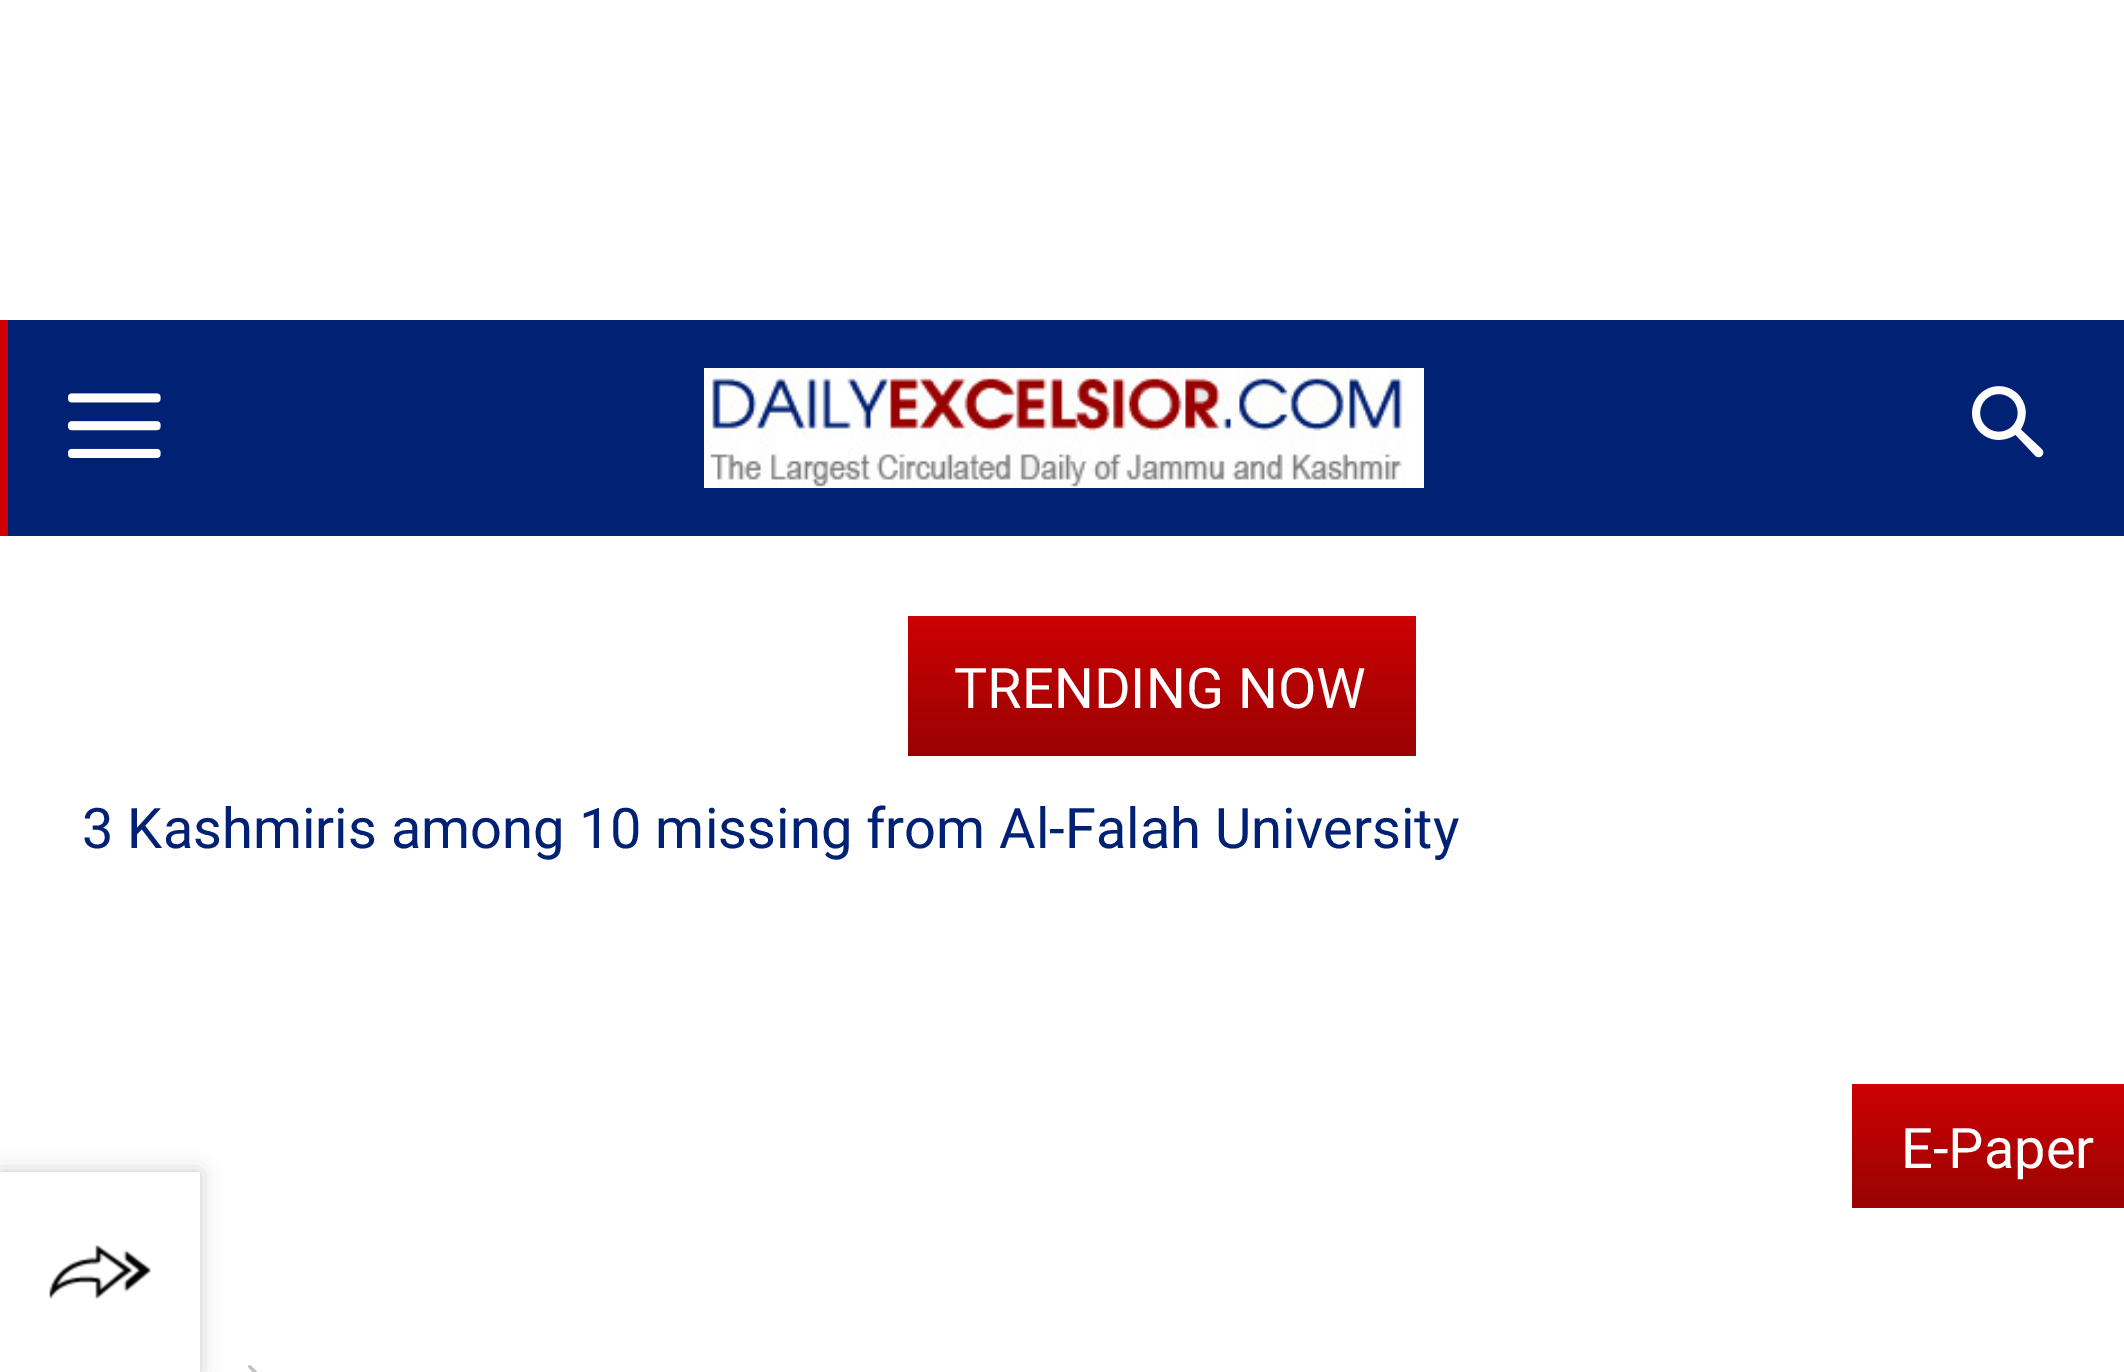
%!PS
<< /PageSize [2124 1372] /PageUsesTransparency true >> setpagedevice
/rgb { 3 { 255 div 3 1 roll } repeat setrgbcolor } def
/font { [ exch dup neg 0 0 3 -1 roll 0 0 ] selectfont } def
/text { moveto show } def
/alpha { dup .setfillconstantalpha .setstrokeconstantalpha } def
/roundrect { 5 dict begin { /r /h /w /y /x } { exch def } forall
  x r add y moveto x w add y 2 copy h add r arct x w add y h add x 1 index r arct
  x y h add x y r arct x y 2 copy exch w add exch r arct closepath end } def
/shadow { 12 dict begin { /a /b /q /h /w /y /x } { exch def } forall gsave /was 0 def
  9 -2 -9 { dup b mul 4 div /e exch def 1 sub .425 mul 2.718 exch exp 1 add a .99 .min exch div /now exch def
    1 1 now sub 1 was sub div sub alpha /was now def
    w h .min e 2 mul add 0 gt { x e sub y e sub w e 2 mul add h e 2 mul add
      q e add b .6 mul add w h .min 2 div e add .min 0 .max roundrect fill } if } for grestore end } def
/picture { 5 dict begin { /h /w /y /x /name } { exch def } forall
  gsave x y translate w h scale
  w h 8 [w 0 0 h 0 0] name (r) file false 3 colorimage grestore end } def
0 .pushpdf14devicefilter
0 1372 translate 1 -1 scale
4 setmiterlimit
255 255 255 rgb
0 0 2124 1372 rectfill
206 0 2 rgb
0 320 8 216 rectfill
1 33 116 rgb
8 320 2116 216 rectfill
(img_01.rgb) 68 393 93 65 picture
(img_02.rgb) 704 368 720 120 picture
(img_03.rgb) 1972 386 72 72 picture
gsave 908 616 moveto 508 0 rlineto 0 140 rlineto -508 0 rlineto closepath clip newpath
<< /ShadingType 2 /ColorSpace /DeviceRGB /Coords [1162 616 1162 756] /Extend [true true] /Function << /FunctionType 2 /Domain [0 1] /C0 [0.804 0.004 0.008] /C1 [0.6 0.012 0.016] /N 1 >> >> shfill grestore
gsave 1852 1084 moveto 272 0 rlineto 0 124 rlineto -272 0 rlineto closepath clip newpath
<< /ShadingType 2 /ColorSpace /DeviceRGB /Coords [1998 1084 1998 1208] /Extend [true true] /Function << /FunctionType 2 /Domain [0 1] /C0 [0.804 0.004 0.008] /C1 [0.6 0.012 0.016] /N 1 >> >> shfill grestore
(img_04.rgb) 248 1365 10 7 picture
gsave
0 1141 moveto 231 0 rlineto 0 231 rlineto -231 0 rlineto closepath 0 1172 moveto 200 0 rlineto 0 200 rlineto -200 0 rlineto closepath eoclip newpath
0 0 0 rgb
0 1172 200 200 0 10 0.2 shadow
grestore
(img_05.rgb) 49 1245 102 54 picture
/Roboto-Regular 56 font
255 255 255 rgb
(TRENDING NOW) 954 708 text
1 33 116 rgb
(3 Kashmiris among 10 missing from Al-Falah University) 82 848 text
255 255 255 rgb
(E-Paper) 1901 1168 text
.poppdf14devicefilter showpage
